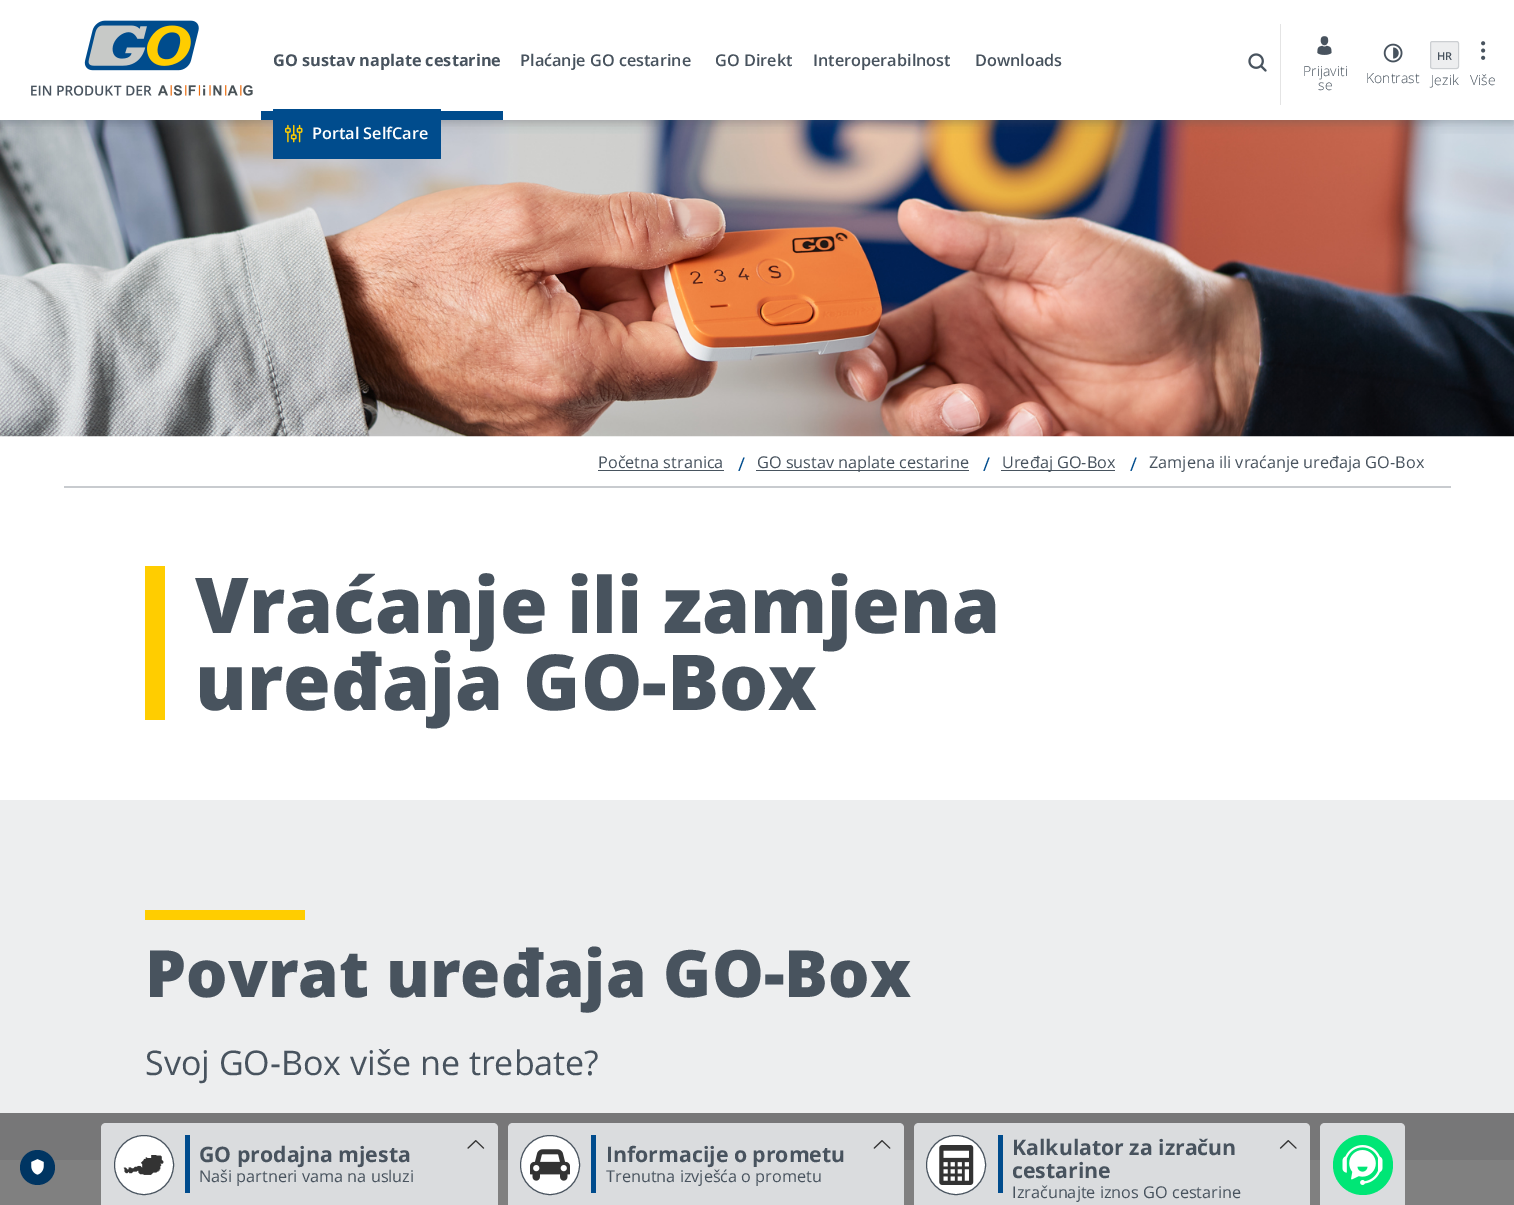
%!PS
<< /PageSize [1514 1205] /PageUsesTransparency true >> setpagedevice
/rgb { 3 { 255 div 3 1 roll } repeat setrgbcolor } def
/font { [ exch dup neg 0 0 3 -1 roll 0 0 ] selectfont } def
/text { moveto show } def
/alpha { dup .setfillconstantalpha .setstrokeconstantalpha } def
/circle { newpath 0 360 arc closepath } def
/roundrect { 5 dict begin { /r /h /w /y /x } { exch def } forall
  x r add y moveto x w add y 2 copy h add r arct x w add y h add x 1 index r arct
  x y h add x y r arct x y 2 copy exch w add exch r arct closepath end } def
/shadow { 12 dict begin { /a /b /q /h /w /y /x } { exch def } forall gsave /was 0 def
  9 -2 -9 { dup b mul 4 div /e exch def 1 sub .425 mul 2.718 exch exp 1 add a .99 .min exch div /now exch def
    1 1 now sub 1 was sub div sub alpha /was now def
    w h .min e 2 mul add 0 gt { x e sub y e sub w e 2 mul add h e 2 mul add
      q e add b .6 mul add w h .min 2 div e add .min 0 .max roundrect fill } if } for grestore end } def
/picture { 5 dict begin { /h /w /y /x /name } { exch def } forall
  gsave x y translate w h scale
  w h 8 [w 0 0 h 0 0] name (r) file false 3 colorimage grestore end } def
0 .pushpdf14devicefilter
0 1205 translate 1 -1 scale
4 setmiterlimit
255 255 255 rgb
0 0 1514 1205 rectfill
128 128 128 rgb
0 1160 1514 45 rectfill
(img_07.rgb) 0 120 1514 317 picture
gsave
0 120 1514 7 rectclip
72 83 94 rgb
1 5 1513 118 0 3 0.19 shadow
grestore
gsave
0 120 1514 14 rectclip
72 83 94 rgb
0 8 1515 120 0 6 0.14 shadow
grestore
(img_01.rgb) 31 20 222 76 picture
0 76 141 rgb
273 109 168 50 1 roundrect fill
273 109 168 50 2.5 roundrect fill
261 111 242 9 rectfill
(img_02.rgb) 285 124 18 19 picture
228 228 228 rgb
1280 24 1 81 rectfill
(img_03.rgb) 1248 53 19 19 picture
(img_04.rgb) 1317 36 15 19 picture
(img_05.rgb) 1383 43 20 20 picture
237 238 239 rgb
1430 41 29 28 2.5 roundrect fill
0.2 alpha
72 83 94 rgb
1430.5 41.5 28 27 2 roundrect stroke
1 alpha
(img_06.rgb) 1481 41 5 19 picture
200 203 207 rgb
64 486 1387 2 rectfill
72 83 94 rgb
598 470 126 1 rectfill
756 470 213 1 rectfill
1001 470 114 1 rectfill
255 205 0 rgb
145 566 20 154 rectfill
237 238 239 rgb
0 800 1514 313 rectfill
119 119 120 rgb
0 1113 1514 47 rectfill
255 205 0 rgb
145 910 160 10 rectfill
0 53 98 rgb
37.5 1167.5 17.5 circle fill
(img_08.rgb) 31 1159 13 16 picture
218 220 222 rgb
106 1123 moveto 387 0 rlineto 3 0 5 2 5 5 rcurveto 0 77 rlineto -397 0 rlineto 0 -77 rlineto 0 -3 2 -5 5 -5 rcurveto closepath fill
255 255 255 rgb
144 1165 29.5 circle gsave fill grestore
72 83 94 rgb
stroke
(img_09.rgb) 123 1155 41 20 picture
0 76 141 rgb
185 1135 5 58 rectfill
(img_10.rgb) 467 1140 18 9 picture
218 220 222 rgb
513 1123 moveto 386 0 rlineto 3 0 5 2 5 5 rcurveto 0 77 rlineto -396 0 rlineto 0 -77 rlineto 0 -3 2 -5 5 -5 rcurveto closepath fill
255 255 255 rgb
550 1165 29.5 circle gsave fill grestore
72 83 94 rgb
stroke
(img_11.rgb) 530 1149 40 32 picture
0 76 141 rgb
591 1135 5 58 rectfill
(img_12.rgb) 873 1140 18 9 picture
218 220 222 rgb
919 1123 moveto 386 0 rlineto 3 0 5 2 5 5 rcurveto 0 77 rlineto -396 0 rlineto 0 -77 rlineto 0 -3 2 -5 5 -5 rcurveto closepath fill
255 255 255 rgb
956 1165 29.5 circle gsave fill grestore
72 83 94 rgb
stroke
(img_13.rgb) 939 1145 35 40 picture
0 76 141 rgb
998 1135 5 58 rectfill
(img_14.rgb) 1279 1140 18 9 picture
218 220 222 rgb
1325 1123 moveto 75 0 rlineto 3 0 5 2 5 5 rcurveto 0 77 rlineto -85 0 rlineto 0 -77 rlineto 0 -3 2 -5 5 -5 rcurveto closepath fill
0 230 118 rgb
1363 1165 30 circle fill
(img_15.rgb) 1342 1145 41 40 picture
/OpenSans-Bold 16.25 font
72 83 94 rgb
(GO sustav naplate cestarine) 273 66 text
/OpenSans-SemiBold 16.25 font
(Plaćanje GO cestarine) 520 66 text
(GO Direkt) 715 66 text
(Interoperabilnost) 813 66 text
(Downloads) 975 66 text
255 255 255 rgb
(Portal SelfCare) 312 139 text
/OpenSans-Light 14 font
72 83 94 rgb
(Prijaviti) 1303 76 text
(se) 1318 90 text
(Kontrast) 1366 83 text
/OpenSans-SemiBold 11 font
(HR) 1437 60 text
/OpenSans-Light 14 font
(Jezik) 1431 85 text
(Više) 1470 85 text
/OpenSans-Regular 16.25 font
(Početna stranica) 598 468 text
/OpenSans-Regular 19 font
0 76 141 rgb
(/) 738 471 text
/OpenSans-Regular 16.25 font
72 83 94 rgb
(GO sustav naplate cestarine) 757 468 text
/OpenSans-Regular 19 font
0 76 141 rgb
(/) 983 471 text
/OpenSans-Regular 16.25 font
72 83 94 rgb
(Uređaj GO-Box) 1002 468 text
/OpenSans-Regular 19 font
0 76 141 rgb
(/) 1130 471 text
/OpenSans-Regular 16.25 font
72 83 94 rgb
(Zamjena ili vraćanje uređaja GO-Box) 1149 468 text
/OpenSans-ExtraBold 77.25 font
(Vraćanje ili zamjena) 195 633 text
(uređaja GO-Box) 195 710 text
/OpenSans-ExtraBold 65.25 font
(Povrat uređaja GO-Box) 145 997 text
/OpenSans-Regular 34 font
(Svoj GO-Box više ne trebate?) 145 1075 text
/OpenSans-Bold 21.25 font
(GO prodajna mjesta) 199 1162 text
/OpenSans-Regular 16.25 font
(Naši partneri vama na usluzi) 199 1182 text
/OpenSans-Bold 21.25 font
(Informacije o prometu) 606 1162 text
/OpenSans-Regular 16.25 font
(Trenutna izvješća o prometu) 606 1182 text
/OpenSans-Bold 21.25 font
(Kalkulator za izračun) 1012 1155 text
(cestarine) 1012 1178 text
/OpenSans-Regular 16.25 font
(Izračunajte iznos GO cestarine) 1012 1198 text
.poppdf14devicefilter showpage
